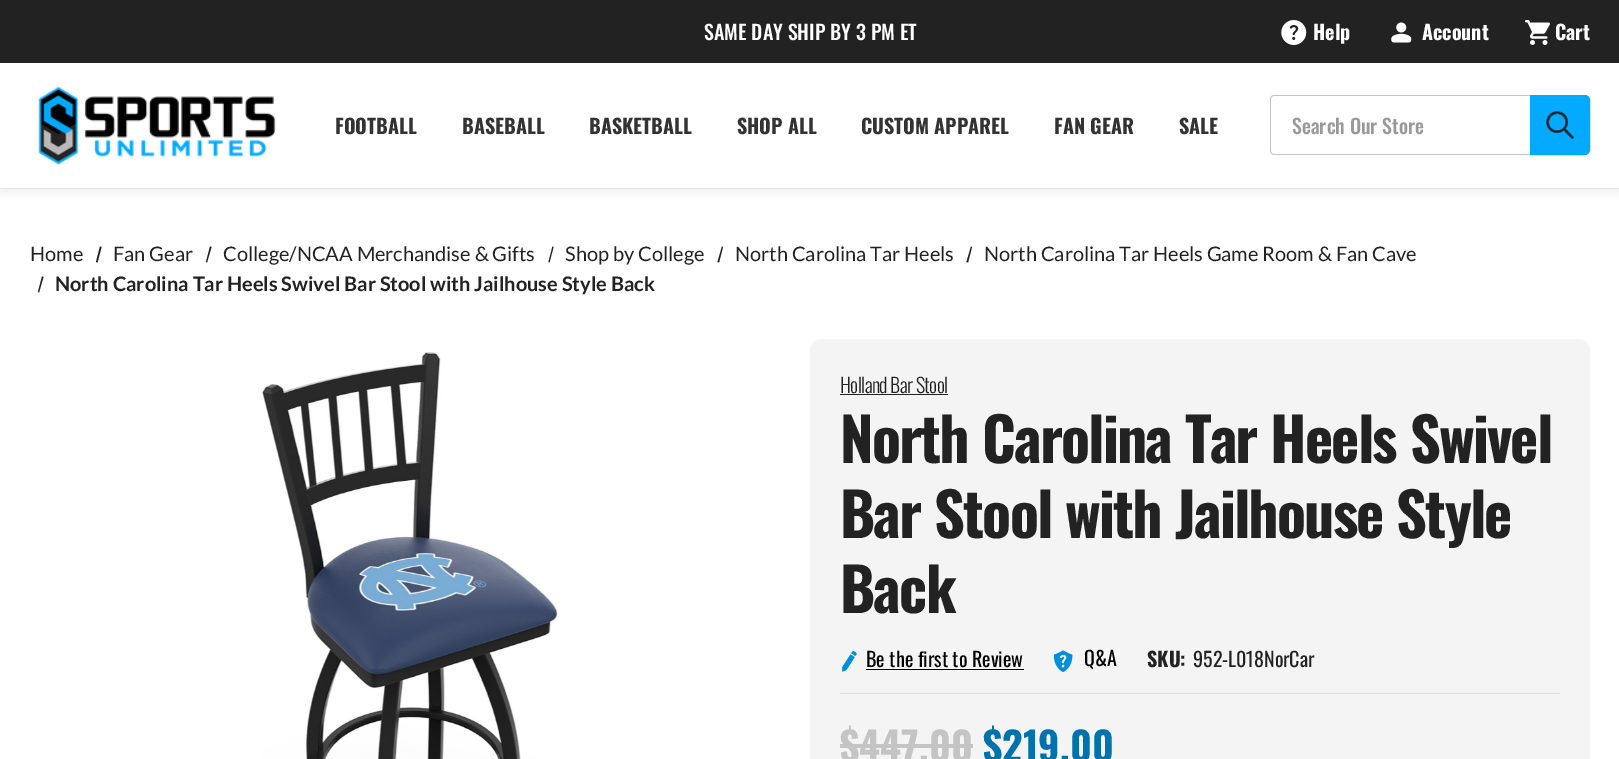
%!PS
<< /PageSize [1619 759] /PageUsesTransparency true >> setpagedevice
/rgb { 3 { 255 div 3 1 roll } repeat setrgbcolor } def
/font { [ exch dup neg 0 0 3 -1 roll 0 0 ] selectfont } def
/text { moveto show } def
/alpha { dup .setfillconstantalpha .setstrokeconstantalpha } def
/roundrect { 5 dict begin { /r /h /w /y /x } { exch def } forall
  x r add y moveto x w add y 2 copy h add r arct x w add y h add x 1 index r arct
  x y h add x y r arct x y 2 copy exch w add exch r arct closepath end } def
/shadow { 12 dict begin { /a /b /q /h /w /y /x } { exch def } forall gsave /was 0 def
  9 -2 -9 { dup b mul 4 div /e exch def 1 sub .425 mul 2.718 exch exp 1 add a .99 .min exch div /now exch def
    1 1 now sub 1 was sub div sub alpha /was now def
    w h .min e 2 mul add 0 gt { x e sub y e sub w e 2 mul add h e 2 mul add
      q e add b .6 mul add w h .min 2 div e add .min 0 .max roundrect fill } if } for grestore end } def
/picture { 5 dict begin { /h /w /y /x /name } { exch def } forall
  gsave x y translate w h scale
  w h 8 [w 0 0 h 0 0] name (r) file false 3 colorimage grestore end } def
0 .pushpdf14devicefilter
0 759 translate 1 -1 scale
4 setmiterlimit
255 255 255 rgb
0 0 1619 759 rectfill
34 34 34 rgb
0 5 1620 189 0 5 0.06 shadow
255 255 255 rgb
0 63 1619 125 rectfill
229 229 229 rgb
0 188 1619 1 rectfill
34 34 34 rgb
0 0 1619 63 rectfill
(img_01.rgb) 1281 20 26 25 picture
(img_02.rgb) 1391 22 21 21 picture
(img_03.rgb) 1525 20 25 25 picture
(img_04.rgb) 38 86 238 79 picture
196 196 196 rgb
1274 95 moveto 256 0 rlineto 0 60 rlineto -256 0 rlineto -2 0 -4 -2 -4 -4 rcurveto 0 -52 rlineto 0 -2 2 -4 4 -4 rcurveto closepath 1274 96 moveto 256 0 rlineto 0 58 rlineto -256 0 rlineto -2 0 -3 -1 -3 -3 rcurveto 0 -52 rlineto 0 -2 1 -3 3 -3 rcurveto closepath eofill
4 170 255 rgb
1530.5 95.5 moveto 54.5 0 rlineto 2.5 0 4.5 2 4.5 4.5 rcurveto 0 50 rlineto 0 2.5 -2 4.5 -4.5 4.5 rcurveto -54.5 0 rlineto closepath gsave fill grestore
stroke
(img_05.rgb) 1546 111 28 28 picture
34 34 34 rgb
100 246.5 moveto 1.5 0.5 rlineto -4 15.5 rlineto -1.5 -0.5 rlineto closepath fill
210 246.5 moveto 1.5 0.5 rlineto -4.5 15.5 rlineto -1 -0.5 rlineto closepath fill
552.5 246.5 moveto 1 0.5 rlineto -4 15.5 rlineto -1 -0.5 rlineto closepath fill
722 246.5 moveto 1 0.5 rlineto -4 15.5 rlineto -1.5 -0.5 rlineto closepath fill
971 246.5 moveto 1 0.5 rlineto -4 15.5 rlineto -1.5 -0.5 rlineto closepath fill
42 276.5 moveto 1.5 0.5 rlineto -4.5 15.5 rlineto -1 -0.5 rlineto closepath fill
(img_06.rgb) 262 352 296 407 picture
244 244 244 rgb
821 339 moveto 758 0 rlineto 6 0 11 5 11 11 rcurveto 0 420 rlineto -780 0 rlineto 0 -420 rlineto 0 -6 5 -11 11 -11 rcurveto closepath fill
34 34 34 rgb
840 394 108 1 rectfill
(img_07.rgb) 842 651 15 21 picture
0 0 0 rgb
866 669 158 1 rectfill
(img_08.rgb) 1054 650 19 23 picture
224 224 224 rgb
840 693 720 1 rectfill
196 196 196 rgb
840 744 133 4 rectfill
/Oswald-Medium 20 font
255 255 255 rgb
(SAME DAY SHIP BY 3 PM ET) 704 40 text
/Oswald-Bold 20 font
(Help) 1313 40 text
(Account) 1422 40 text
(Cart) 1555 40 text
51 51 51 rgb
(FOOTBALL) 335 134 text
(BASEBALL) 462 134 text
(BASKETBALL) 589 134 text
(SHOP ALL) 737 134 text
(CUSTOM APPAREL) 861 134 text
(FAN GEAR) 1054 134 text
(SALE) 1179 134 text
/Oswald-Medium 20 font
153 153 153 rgb
(Search Our Store) 1292 134 text
/Lato-Regular 20 font
34 34 34 rgb
(Home) 30 261 text
(Fan Gear) 113 261 text
(College/NCAA Merchandise & Gifts) 223 261 text
(Shop by College) 565 261 text
(North Carolina Tar Heels) 735 261 text
(North Carolina Tar Heels Game Room & Fan Cave) 984 261 text
/Lato-Bold 20 font
(North Carolina Tar Heels Swivel Bar Stool with Jailhouse Style Back) 55 291 text
/Oswald-Light 20 font
840 393 moveto -0.6 0 (Holland Bar Stool) ashow
/Oswald-Bold 60 font
840 463 moveto -1.8 0 (North Carolina Tar Heels Swivel) ashow
840 538 moveto -1.8 0 (Bar Stool with Jailhouse Style) ashow
840 613 moveto -1.8 0 (Back) ashow
/Oswald-Regular 20 font
0 0 0 rgb
(Be the first to Review) 866 667 text
(Q&A) 1084 666 text
/Oswald-Bold 20 font
34 34 34 rgb
(SKU:) 1147 667 text
/Oswald-Regular 20 font
(952-L018NorCar) 1193 667 text
/Oswald-Bold 40 font
196 196 196 rgb
($447.00) 840 762 text
0 115 173 rgb
($219.00) 983 762 text
.poppdf14devicefilter showpage
